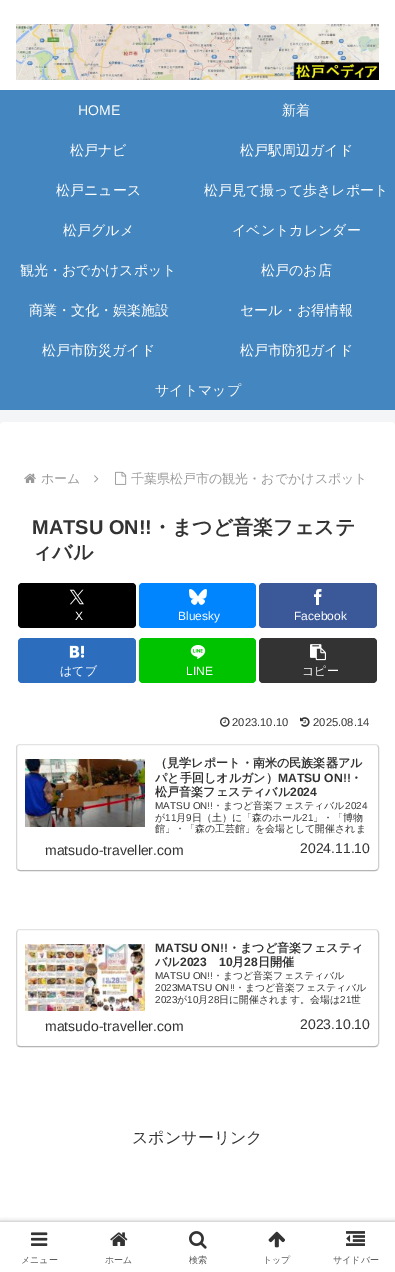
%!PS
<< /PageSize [395 1272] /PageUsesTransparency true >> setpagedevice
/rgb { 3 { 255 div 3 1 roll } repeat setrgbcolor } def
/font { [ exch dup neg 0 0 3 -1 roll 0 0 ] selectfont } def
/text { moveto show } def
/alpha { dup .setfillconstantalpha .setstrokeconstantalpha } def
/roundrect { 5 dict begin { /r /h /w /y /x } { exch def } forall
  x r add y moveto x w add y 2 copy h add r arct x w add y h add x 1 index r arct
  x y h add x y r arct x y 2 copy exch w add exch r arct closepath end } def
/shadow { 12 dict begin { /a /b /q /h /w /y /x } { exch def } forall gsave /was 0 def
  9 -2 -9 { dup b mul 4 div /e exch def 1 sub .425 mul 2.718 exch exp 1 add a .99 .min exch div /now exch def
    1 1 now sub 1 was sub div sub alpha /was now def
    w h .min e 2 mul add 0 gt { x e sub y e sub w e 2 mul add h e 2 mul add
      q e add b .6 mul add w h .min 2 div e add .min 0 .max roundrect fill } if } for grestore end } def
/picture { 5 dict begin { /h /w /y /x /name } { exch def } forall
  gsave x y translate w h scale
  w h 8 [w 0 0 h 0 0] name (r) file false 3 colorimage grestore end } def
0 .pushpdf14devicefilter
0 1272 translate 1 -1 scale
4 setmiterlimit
244 245 247 rgb
0 0 395 1272 rectfill
255 255 255 rgb
0 0 395 90 rectfill
(img_01.rgb) 16 24 363 56 picture
68 134 191 rgb
0 90 395 320 rectfill
255 255 255 rgb
0 422 395 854 4 roundrect fill
(img_02.rgb) 24 473 12 10 picture
(img_03.rgb) 94 475 5 8 picture
(img_04.rgb) 115 471 12 14 picture
0 0 0 rgb
18 583 118 45 4 roundrect fill
(img_05.rgb) 69 589 15 16 picture
0 133 255 rgb
139 583 117 45 4 roundrect fill
(img_06.rgb) 189 589 18 16 picture
59 89 152 rgb
259 583 118 45 4 roundrect fill
(img_07.rgb) 314 589 8 16 picture
44 110 189 rgb
18 638 118 45 4 roundrect fill
(img_08.rgb) 69 645 16 13 picture
0 195 0 rgb
139 638 117 45 4 roundrect fill
(img_09.rgb) 190 645 16 14 picture
51 51 51 rgb
259 638 118 45 4 roundrect fill
(img_10.rgb) 310 644 16 17 picture
(img_11.rgb) 220 717 10 10 picture
(img_12.rgb) 300 717 10 10 picture
227 227 227 rgb
17.5 745.5 moveto 0.5 -0.5 1.5 -1 2.5 -1 rcurveto 355 0 rlineto 1 0 2 0.5 2.5 1 rcurveto stroke
206 206 206 rgb
377.5 745.5 moveto 0.5 0.5 1 1.5 1 2.5 rcurveto 0 119 rlineto 0 1 -0.5 2 -1 2.5 rcurveto stroke
180 180 180 rgb
377.5 869.5 moveto -0.5 0.5 -1.5 1 -2.5 1 rcurveto -355 0 rlineto -1 0 -2 -0.5 -2.5 -1 rcurveto stroke
214 214 214 rgb
17.5 869.5 moveto -0.5 -0.5 -1 -1.5 -1 -2.5 rcurveto 0 -119 rlineto 0 -1 0.5 -2 1 -2.5 rcurveto stroke
(img_13.rgb) 25 759 120 68 picture
227 227 227 rgb
17.5 930.5 moveto 0.5 -0.5 1.5 -1 2.5 -1 rcurveto 355 0 rlineto 1 0 2 0.5 2.5 1 rcurveto stroke
206 206 206 rgb
377.5 930.5 moveto 1 2.5 rlineto 0 110.5 rlineto -1 2 rlineto stroke
180 180 180 rgb
377.5 1045.5 moveto -0.5 0.5 -1.5 1 -2.5 1 rcurveto -355 0 rlineto -1 0 -2 -0.5 -2.5 -1 rcurveto stroke
214 214 214 rgb
17.5 1045.5 moveto -1 -2 rlineto 0 -92 rlineto 0 -18.5 rlineto 1 -2.5 rlineto stroke
(img_14.rgb) 25 944 120 67 picture
gsave
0 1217 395 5 rectclip
169 169 169 rgb
0 1222 395 50 0 2.5 1 shadow
grestore
(img_15.rgb) 31 1232 17 14 picture
(img_16.rgb) 110 1232 18 14 picture
(img_17.rgb) 189 1231 18 18 picture
(img_18.rgb) 268 1231 17 17 picture
(img_19.rgb) 346 1231 19 15 picture
/LiberationSans-Regular 14 font
255 255 255 rgb
(HOME) 78 115 text
/WenQuanYiZenHei-Medium 14 font
(新着) 282 115 text
(松戸ナビ) 70 155 text
(松戸駅周辺ガイド) 240 155 text
(松戸ニュース) 56 195 text
(松戸見て撮って歩きレポート) 204 195 text
(松戸グルメ) 63 235 text
(イベントカレンダー) 232 235 text
(観光・おでかけスポット) 20 275 text
(松戸のお店) 261 275 text
(商業・文化・娯楽施設) 29 315 text
(セール・お得情報) 240 315 text
(松戸市防災ガイド) 42 355 text
(松戸市防犯ガイド) 240 355 text
(サイトマップ) 155 395 text
/WenQuanYiZenHei-Medium 13 font
153 153 153 rgb
(ホーム) 41 483 text
(千葉県松戸市の観光・おでかけスポット) 131 483 text
/LiberationSans-Bold 20 font
51 51 51 rgb
(MATSU ON!!) 32 534 text
/WenQuanYiZenHei-Bold 20 font
(・まつど音楽フェステ) 152 534 text
(ィバル) 32 559 text
/LiberationSans-Regular 12 font
255 255 255 rgb
(X) 75 620 text
(Bluesky) 178 620 text
(Facebook) 294 620 text
/WenQuanYiZenHei-Medium 12 font
(はてブ) 60 675 text
/LiberationSans-Regular 12 font
(LINE) 186 675 text
/WenQuanYiZenHei-Medium 12 font
(コピー) 302 675 text
/LiberationSans-Regular 11.25 font
51 51 51 rgb
(2023.10.10) 232 726 text
(2025.08.14) 313 726 text
/WenQuanYiZenHei-Bold 12.1 font
(（見学レポート・南米の民族楽器アル) 155 767 text
(パと手回しオルガン）) 155 782 text
/LiberationSans-Bold 12.1 font
(MATSU ON!!) 278 782 text
/WenQuanYiZenHei-Bold 12.1 font
(・) 350 782 text
(松戸音楽フェスティバル) 155 796 text
/LiberationSans-Bold 12.1 font
(2024) 290 796 text
/LiberationSans-Regular 9.95 font
(MATSU ON!!) 155 809 text
/WenQuanYiZenHei-Medium 9.95 font
(・まつど音楽フェスティバル) 213 809 text
/LiberationSans-Regular 9.95 font
(2024) 345 809 text
/WenQuanYiZenHei-Medium 9.95 font
(が) 155 821 text
/LiberationSans-Regular 9.95 font
(11) 165 821 text
/WenQuanYiZenHei-Medium 9.95 font
(月) 176 821 text
/LiberationSans-Regular 9.95 font
(9) 186 821 text
/WenQuanYiZenHei-Medium 9.95 font
(日（土）に「森のホール) 192 821 text
/LiberationSans-Regular 9.95 font
(21) 302 821 text
/WenQuanYiZenHei-Medium 9.95 font
(」・「博物) 313 821 text
(館」・「森の工芸館」を会場として開催されま) 155 832 text
/LiberationSans-Regular 14 font
(matsudo-traveller.com) 45 855 text
(2024.11.10) 300 853 text
/LiberationSans-Bold 12.1 font
(MATSU ON!!) 155 952 text
/WenQuanYiZenHei-Bold 12.1 font
(・まつど音楽フェスティ) 228 952 text
(バル) 155 966 text
/LiberationSans-Bold 12.1 font
(2023) 180 966 text
(10) 219 966 text
/WenQuanYiZenHei-Bold 12.1 font
(月) 232 966 text
/LiberationSans-Bold 12.1 font
(28) 244 966 text
/WenQuanYiZenHei-Bold 12.1 font
(日開催) 258 966 text
/LiberationSans-Regular 9.95 font
(MATSU ON!!) 155 979 text
/WenQuanYiZenHei-Medium 9.95 font
(・まつど音楽フェスティバル) 213 979 text
/LiberationSans-Regular 9.95 font
(2023MATSU ON!!) 155 991 text
/WenQuanYiZenHei-Medium 9.95 font
(・まつど音楽フェスティバル) 235 991 text
/LiberationSans-Regular 9.95 font
(2023) 155 1003 text
/WenQuanYiZenHei-Medium 9.95 font
(が) 177 1003 text
/LiberationSans-Regular 9.95 font
(10) 187 1003 text
/WenQuanYiZenHei-Medium 9.95 font
(月) 198 1003 text
/LiberationSans-Regular 9.95 font
(28) 208 1003 text
/WenQuanYiZenHei-Medium 9.95 font
(日に開催されます。会場は) 219 1003 text
/LiberationSans-Regular 9.95 font
(21) 340 1003 text
/WenQuanYiZenHei-Medium 9.95 font
(世) 351 1003 text
/LiberationSans-Regular 14 font
(matsudo-traveller.com) 45 1031 text
(2023.10.10) 300 1029 text
/WenQuanYiZenHei-Medium 16 font
(スポンサーリンク) 132 1143 text
/WenQuanYiZenHei-Medium 9 font
92 92 92 rgb
(メニュー) 21 1263 text
(ホーム) 105 1263 text
(検索) 189 1263 text
(トップ) 263 1263 text
(サイドバー) 333 1263 text
.poppdf14devicefilter showpage
